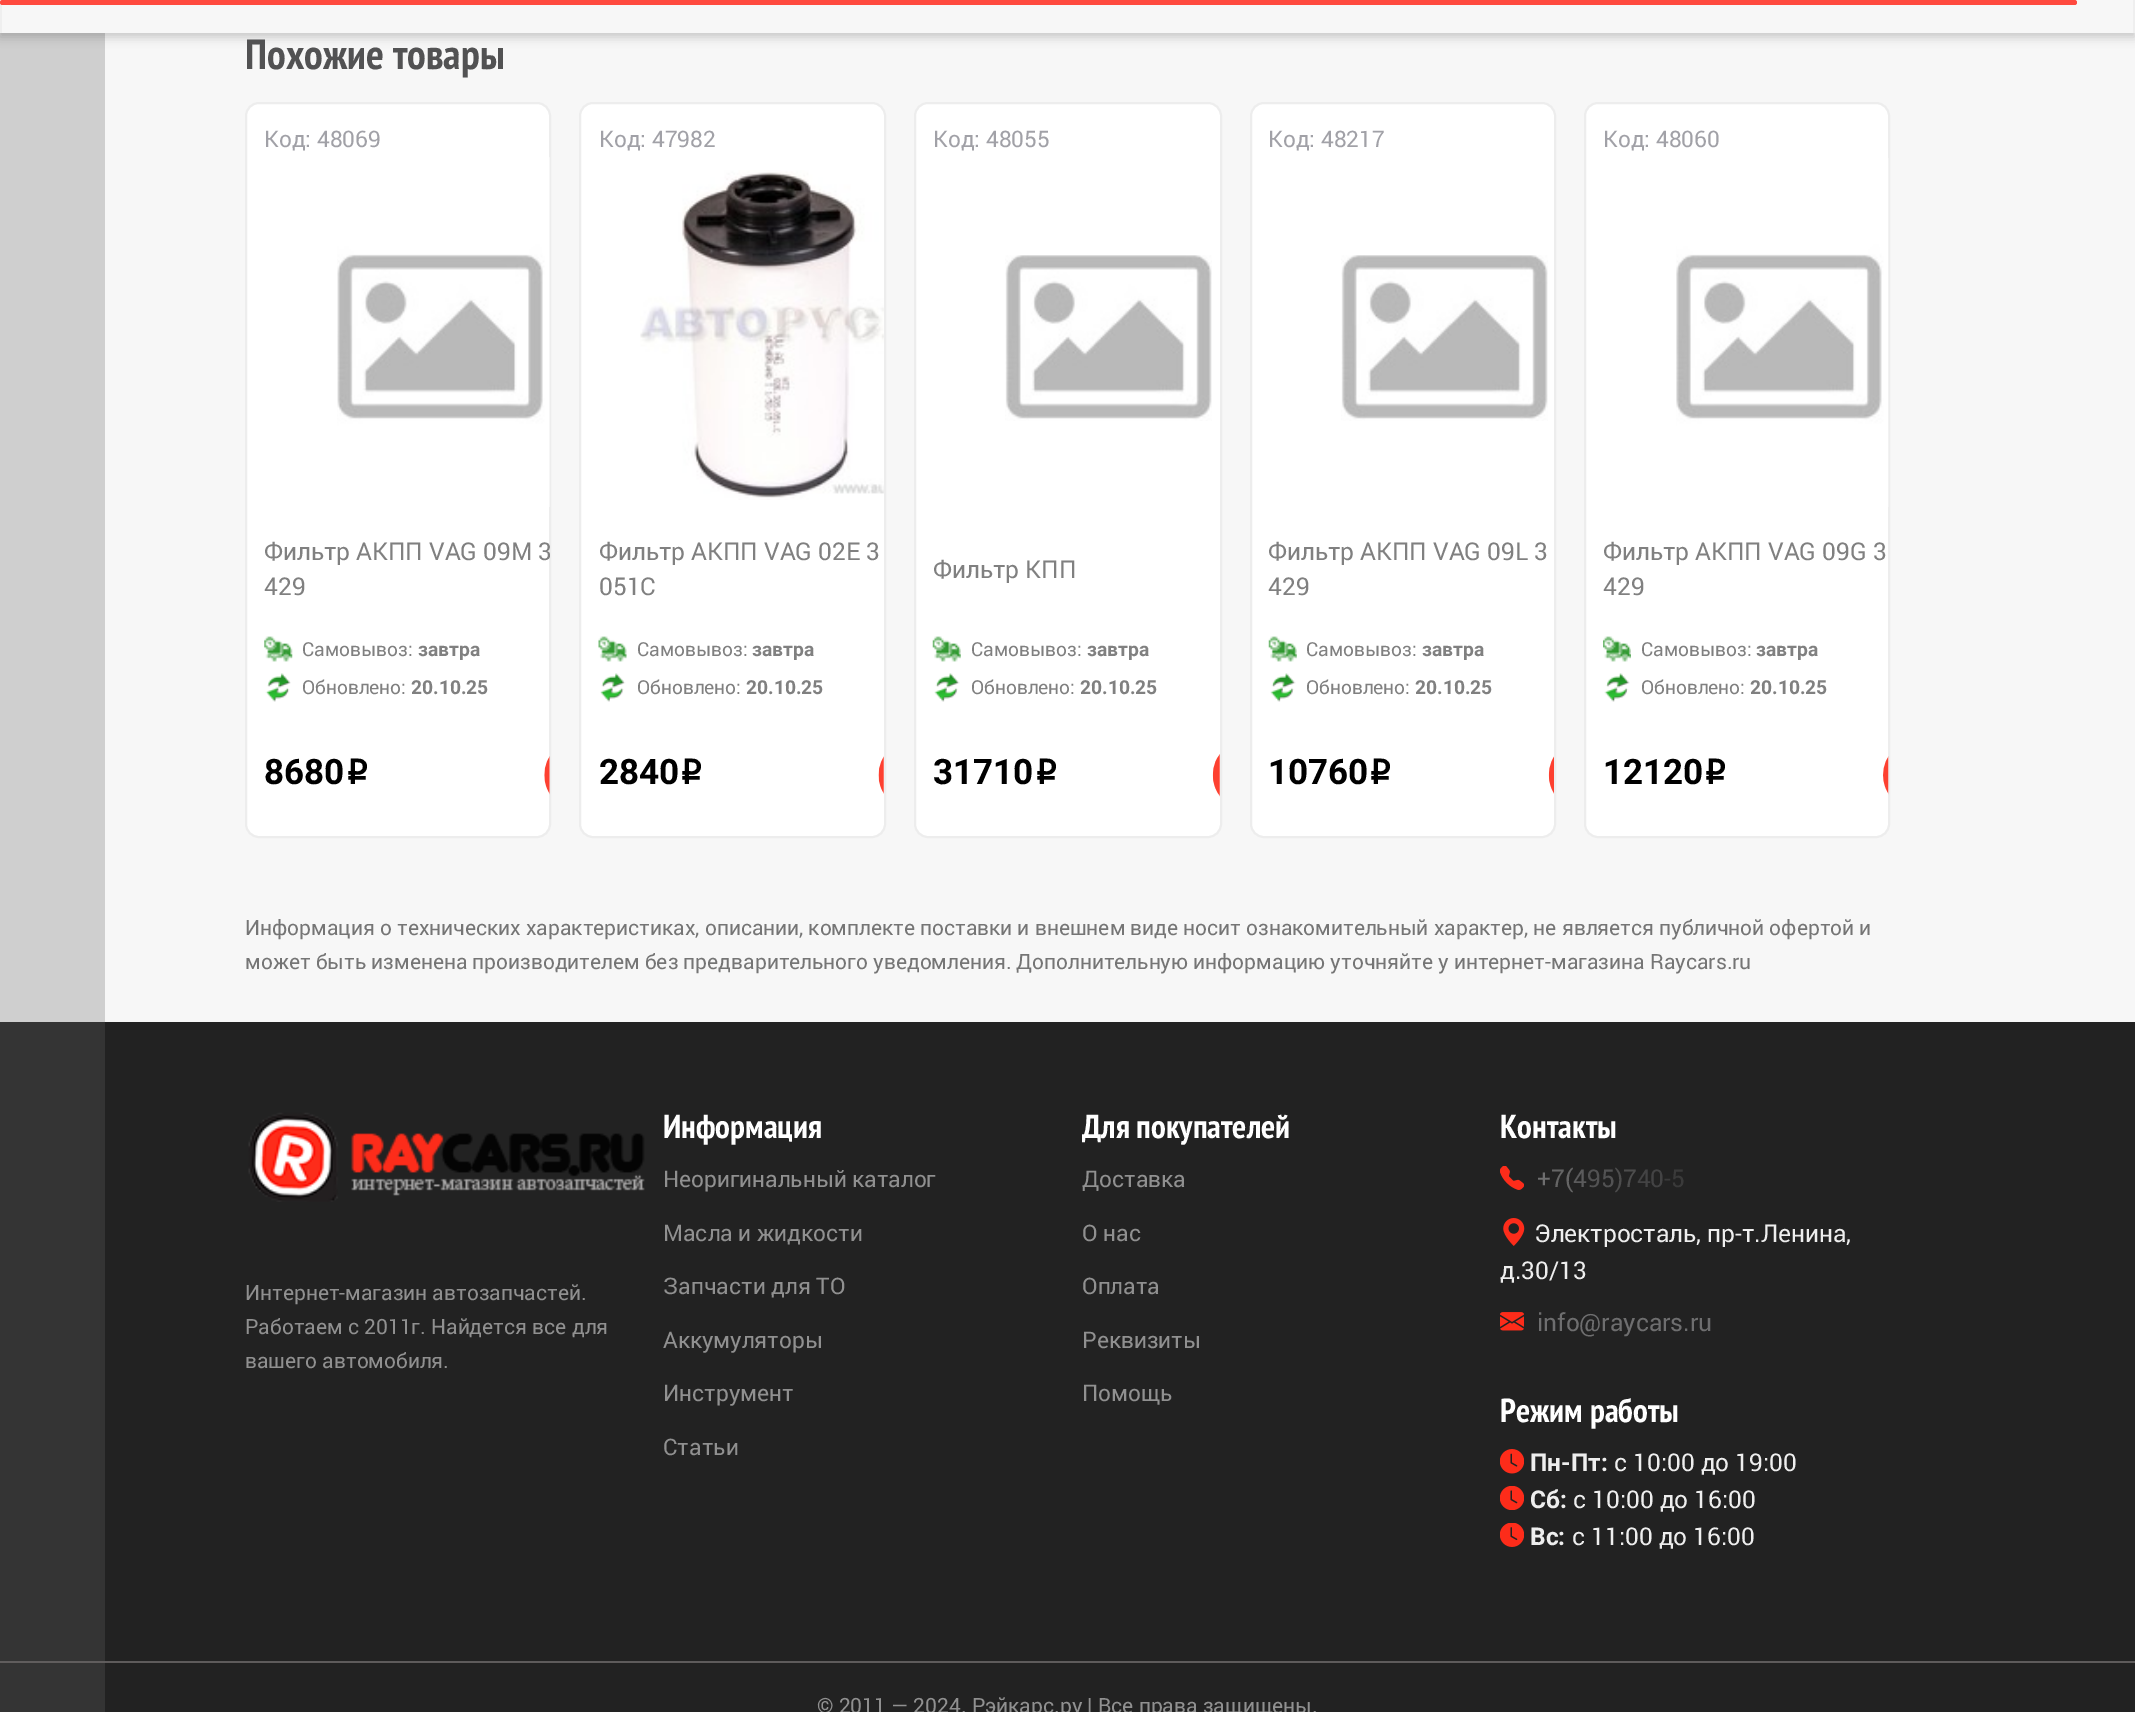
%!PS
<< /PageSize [2135 1712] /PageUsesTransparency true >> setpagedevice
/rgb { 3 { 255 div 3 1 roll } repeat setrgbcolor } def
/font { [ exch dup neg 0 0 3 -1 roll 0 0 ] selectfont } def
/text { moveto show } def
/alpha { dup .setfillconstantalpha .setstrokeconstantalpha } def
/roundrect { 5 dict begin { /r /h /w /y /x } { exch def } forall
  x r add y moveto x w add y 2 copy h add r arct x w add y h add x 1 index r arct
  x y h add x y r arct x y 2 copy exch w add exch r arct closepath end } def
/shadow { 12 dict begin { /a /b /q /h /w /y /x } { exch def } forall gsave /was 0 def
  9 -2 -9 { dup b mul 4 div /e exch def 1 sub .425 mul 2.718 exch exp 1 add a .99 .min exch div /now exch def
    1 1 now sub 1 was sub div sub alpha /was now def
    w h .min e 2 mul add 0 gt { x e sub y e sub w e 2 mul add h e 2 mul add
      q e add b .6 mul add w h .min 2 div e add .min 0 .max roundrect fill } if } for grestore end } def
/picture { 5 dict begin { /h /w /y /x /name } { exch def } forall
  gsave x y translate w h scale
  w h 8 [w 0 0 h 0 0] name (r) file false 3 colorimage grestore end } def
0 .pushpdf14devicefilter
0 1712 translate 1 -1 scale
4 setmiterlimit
247 247 247 rgb
0 0 2135 1712 rectfill
207 207 207 rgb
0 33 105 989 rectfill
0 0 0 rgb
0 -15 2135 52 0 5 0.2 shadow
247 247 247 rgb
2 0 2131 33 rectfill
239 239 239 rgb
2133 0 2 33 rectfill
0 0 2 33 rectfill
255 74 63 rgb
0 0 2077 5 2.5 roundrect fill
255 255 255 rgb
246 103 304 734 13 roundrect gsave fill grestore
237 237 237 rgb
2 setlinewidth
stroke
(img_01.rgb) 337 157 213 350 picture
(img_02.rgb) 264 636 29 26 picture
(img_03.rgb) 265 673 26 29 picture
(img_04.rgb) 544 756 6 39 picture
255 255 255 rgb
580 103 305 734 13 roundrect gsave fill grestore
237 237 237 rgb
stroke
(img_05.rgb) 640 170 244 330 picture
(img_06.rgb) 598 636 29 26 picture
(img_07.rgb) 600 673 26 29 picture
(img_08.rgb) 878 756 6 38 picture
255 255 255 rgb
915 103 306 734 13 roundrect gsave fill grestore
237 237 237 rgb
stroke
(img_09.rgb) 1005 255 207 166 picture
(img_10.rgb) 932 636 29 26 picture
(img_11.rgb) 934 673 26 29 picture
(img_12.rgb) 1212 754 8 43 picture
255 255 255 rgb
1251 103 304 734 13 roundrect gsave fill grestore
237 237 237 rgb
stroke
(img_09.rgb) 1341 255 207 166 picture
(img_10.rgb) 1268 636 29 26 picture
(img_13.rgb) 1270 673 26 29 picture
(img_14.rgb) 1548 756 6 38 picture
255 255 255 rgb
1585 103 304 734 13 roundrect gsave fill grestore
237 237 237 rgb
stroke
(img_15.rgb) 1676 158 213 349 picture
(img_16.rgb) 1603 636 28 26 picture
(img_17.rgb) 1604 673 26 29 picture
(img_18.rgb) 1883 756 6 39 picture
34 34 34 rgb
105 1022 2030 690 rectfill
52 52 52 rgb
0 1022 105 690 rectfill
(img_19.rgb) 248 1112 397 90 picture
(img_20.rgb) 1500 1166 24 24 picture
(img_21.rgb) 1503 1218 22 28 picture
(img_22.rgb) 1500 1312 24 19 picture
(img_23.rgb) 1500 1449 24 25 picture
(img_24.rgb) 1500 1486 24 24 picture
(img_25.rgb) 1500 1523 24 24 picture
94 91 91 rgb
105 1661 2030 2 rectfill
96 93 93 rgb
0 1661 105 2 rectfill
/PTSansNarrow-Bold 42 font
82 82 83 rgb
(Похожие товары) 245 69 text
/Roboto-Regular 22.75 font
161 161 167 rgb
(Код: 48069) 264 147 text
gsave
247 103 303 734 12 roundrect clip newpath
/Roboto-Regular 24.5 font
128 128 128 rgb
(Фильтр АКПП VAG 09M 3) 264 560 text
grestore
/Roboto-Regular 24.5 font
128 128 128 rgb
(429) 264 595 text
/Roboto-Regular 19.25 font
(Самовывоз:) 302 656 text
/Roboto-Bold 19.25 font
(завтра) 418 656 text
/Roboto-Regular 19.25 font
(Обновлено:) 302 694 text
/Roboto-Bold 19.25 font
(20.10.25) 411 694 text
/Roboto-Bold 35 font
0 0 0 rgb
(8680) 264 784 text
/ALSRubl-Bold 35 font
(i) 345 784 text
/Roboto-Regular 22.75 font
161 161 167 rgb
(Код: 47982) 599 147 text
/Roboto-Regular 24.5 font
128 128 128 rgb
(Фильтр АКПП VAG 02E 3) 599 560 text
(051C) 599 595 text
/Roboto-Regular 19.25 font
(Самовывоз:) 637 656 text
/Roboto-Bold 19.25 font
(завтра) 752 656 text
/Roboto-Regular 19.25 font
(Обновлено:) 637 694 text
/Roboto-Bold 19.25 font
(20.10.25) 746 694 text
/Roboto-Bold 35 font
0 0 0 rgb
(2840) 599 784 text
/ALSRubl-Bold 35 font
(i) 679 784 text
/Roboto-Regular 22.75 font
161 161 167 rgb
(Код: 48055) 933 147 text
/Roboto-Regular 24.5 font
128 128 128 rgb
(Фильтр КПП) 933 578 text
/Roboto-Regular 19.25 font
(Самовывоз:) 971 656 text
/Roboto-Bold 19.25 font
(завтра) 1087 656 text
/Roboto-Regular 19.25 font
(Обновлено:) 971 694 text
/Roboto-Bold 19.25 font
(20.10.25) 1080 694 text
/Roboto-Bold 35 font
0 0 0 rgb
(31710) 933 784 text
/ALSRubl-Bold 35 font
(i) 1034 784 text
/Roboto-Regular 22.75 font
161 161 167 rgb
(Код: 48217) 1268 147 text
/Roboto-Regular 24.5 font
128 128 128 rgb
(Фильтр АКПП VAG 09L 3) 1268 560 text
(429) 1268 595 text
/Roboto-Regular 19.25 font
(Самовывоз:) 1306 656 text
/Roboto-Bold 19.25 font
(завтра) 1422 656 text
/Roboto-Regular 19.25 font
(Обновлено:) 1306 694 text
/Roboto-Bold 19.25 font
(20.10.25) 1415 694 text
/Roboto-Bold 35 font
0 0 0 rgb
(10760) 1268 784 text
/ALSRubl-Bold 35 font
(i) 1368 784 text
/Roboto-Regular 22.75 font
161 161 167 rgb
(Код: 48060) 1603 147 text
/Roboto-Regular 24.5 font
128 128 128 rgb
(Фильтр АКПП VAG 09G 3) 1603 560 text
(429) 1603 595 text
/Roboto-Regular 19.25 font
(Самовывоз:) 1641 656 text
/Roboto-Bold 19.25 font
(завтра) 1756 656 text
/Roboto-Regular 19.25 font
(Обновлено:) 1641 694 text
/Roboto-Bold 19.25 font
(20.10.25) 1750 694 text
/Roboto-Bold 35 font
0 0 0 rgb
(12120) 1603 784 text
/ALSRubl-Bold 35 font
(i) 1703 784 text
/Roboto-Regular 21 font
117 117 117 rgb
(Информация о технических характеристиках, описании, комплекте поставки и внешнем виде носит ознакомительный характер, не является публичной офертой и) 245 935 text
(может быть изменена производителем без предварительного уведомления. Дополнительную информацию уточняйте у интернет-магазина Raycars.ru) 245 969 text
144 144 144 rgb
(Интернет-магазин автозапчастей.) 245 1300 text
(Работаем с 2011г. Найдется все для) 245 1334 text
(вашего автомобиля.) 245 1368 text
/PTSansNarrow-Bold 33.25 font
255 255 255 rgb
(Информация) 663 1138 text
/Roboto-Regular 22.75 font
144 144 144 rgb
(Неоригинальный каталог) 663 1187 text
(Масла и жидкости) 663 1241 text
(Запчасти для ТО) 663 1294 text
(Аккумуляторы) 663 1348 text
(Инструмент) 663 1401 text
(Статьи) 663 1455 text
/PTSansNarrow-Bold 33.25 font
255 255 255 rgb
(Для покупателей) 1082 1138 text
/Roboto-Regular 22.75 font
144 144 144 rgb
(Доставка) 1082 1187 text
(О нас) 1082 1241 text
(Оплата) 1082 1294 text
(Реквизиты) 1082 1348 text
(Помощь) 1082 1401 text
/PTSansNarrow-Bold 33.25 font
255 255 255 rgb
(Контакты) 1500 1138 text
/Roboto-Regular 24.5 font
110 110 111 rgb
(+) 1537 1187 text
101 101 101 rgb
(7) 1551 1187 text
(\() 1565 1187 text
91 91 92 rgb
(4) 1573 1187 text
82 82 83 rgb
(9) 1587 1187 text
(5) 1601 1187 text
77 77 77 rgb
(\)) 1615 1187 text
(7) 1623 1187 text
67 67 68 rgb
(4) 1637 1187 text
(0) 1650 1187 text
58 58 58 rgb
(-) 1664 1187 text
(5) 1671 1187 text
238 238 238 rgb
(Электросталь, пр-т.Ленина,) 1534 1242 text
(д.30/13) 1500 1279 text
110 110 111 rgb
(info@raycars.ru) 1537 1331 text
/PTSansNarrow-Bold 33.25 font
255 255 255 rgb
(Режим работы) 1500 1422 text
/Roboto-Bold 24.5 font
238 238 238 rgb
(Пн-Пт:) 1530 1471 text
/Roboto-Regular 24.5 font
(c 10:00 до 19:00) 1614 1471 text
/Roboto-Bold 24.5 font
(Сб:) 1530 1508 text
/Roboto-Regular 24.5 font
(c 10:00 до 16:00) 1573 1508 text
/Roboto-Bold 24.5 font
(Вс:) 1530 1545 text
/Roboto-Regular 24.5 font
(c 11:00 до 16:00) 1572 1545 text
/Roboto-Regular 21 font
144 144 144 rgb
(© 2011 — 2024. Рэйкарс.ру | Все права защищены.) 817 1713 text
.poppdf14devicefilter showpage
